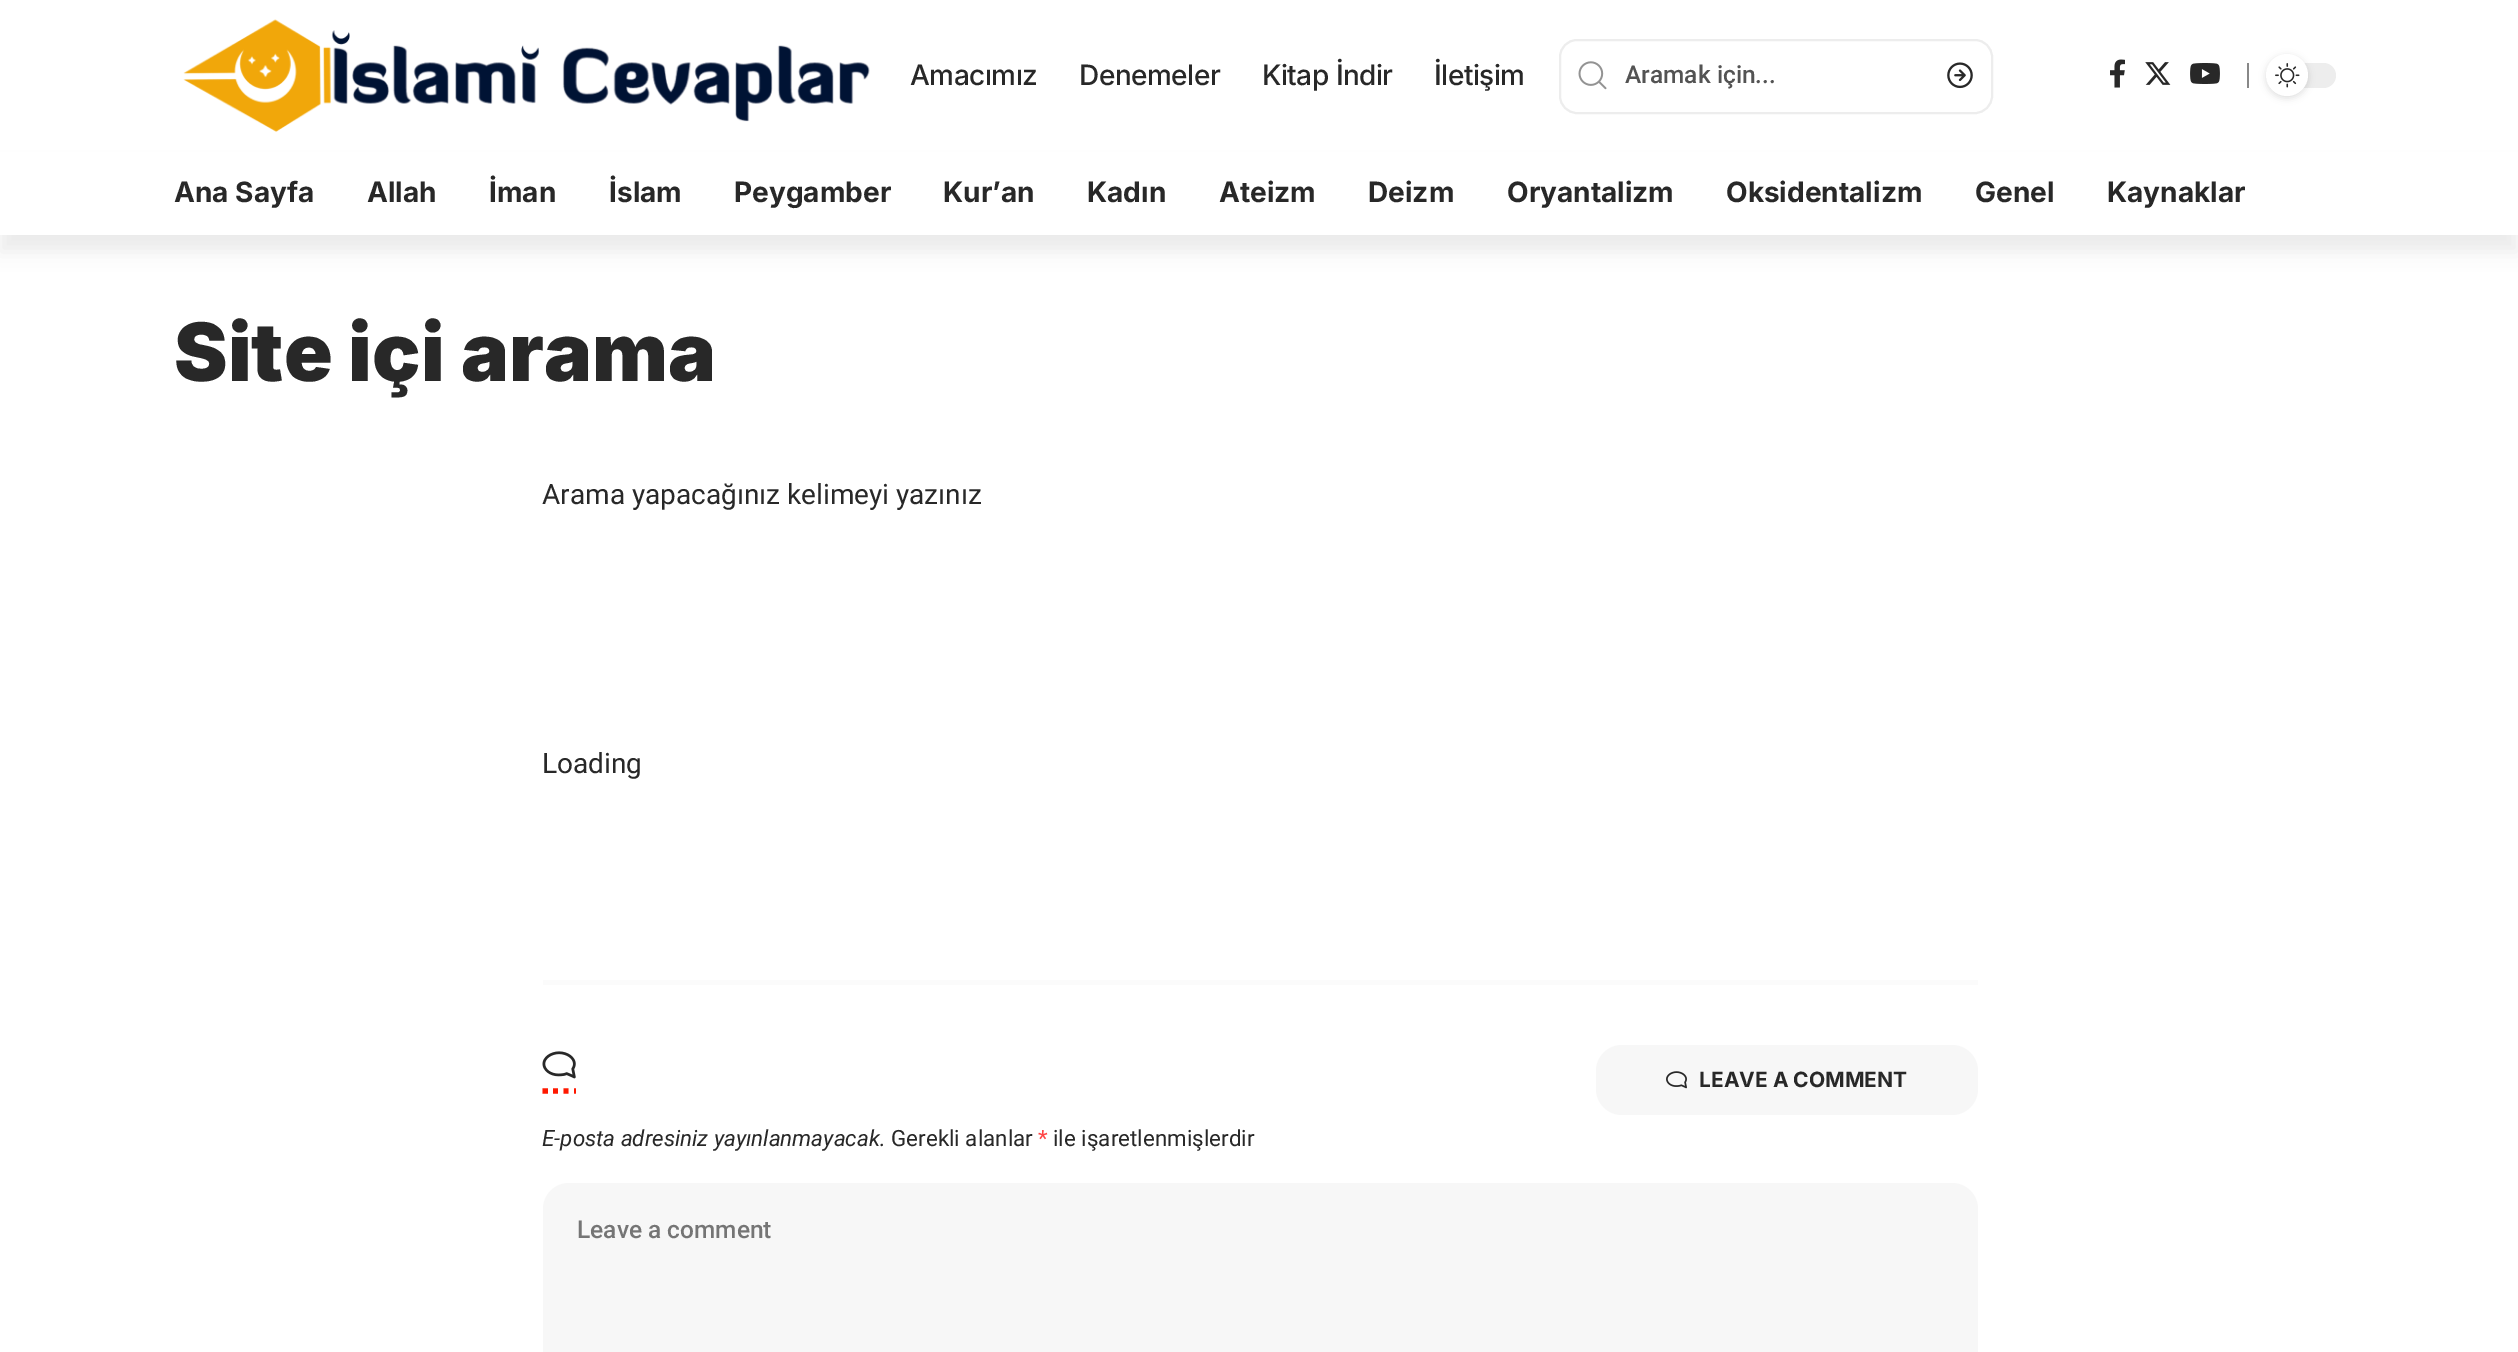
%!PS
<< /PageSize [2518 1352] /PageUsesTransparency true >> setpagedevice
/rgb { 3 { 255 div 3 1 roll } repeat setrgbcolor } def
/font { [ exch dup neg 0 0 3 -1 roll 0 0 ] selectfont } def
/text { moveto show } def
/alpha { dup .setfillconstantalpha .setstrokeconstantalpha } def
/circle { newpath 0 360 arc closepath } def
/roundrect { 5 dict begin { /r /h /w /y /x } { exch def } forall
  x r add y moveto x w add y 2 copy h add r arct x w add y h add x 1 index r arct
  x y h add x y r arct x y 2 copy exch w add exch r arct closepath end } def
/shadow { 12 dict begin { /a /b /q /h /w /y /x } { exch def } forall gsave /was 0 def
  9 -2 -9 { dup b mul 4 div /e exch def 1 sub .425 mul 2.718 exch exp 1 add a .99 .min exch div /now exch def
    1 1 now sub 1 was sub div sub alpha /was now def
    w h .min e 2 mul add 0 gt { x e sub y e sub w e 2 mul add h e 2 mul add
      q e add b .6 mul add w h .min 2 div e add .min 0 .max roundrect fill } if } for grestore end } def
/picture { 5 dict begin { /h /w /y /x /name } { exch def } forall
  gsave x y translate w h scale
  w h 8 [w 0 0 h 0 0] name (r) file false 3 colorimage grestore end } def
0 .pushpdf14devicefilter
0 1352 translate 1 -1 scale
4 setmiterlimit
255 255 255 rgb
0 0 2518 1352 rectfill
(img_01.rgb) 183 19 687 113 picture
237 237 237 rgb
2 setlinewidth
1560 40 432 73 17 roundrect stroke
(img_02.rgb) 1578 61 29 29 picture
(img_03.rgb) 1947 62 26 27 picture
(img_04.rgb) 2110 59 15 29 picture
(img_05.rgb) 2145 62 26 23 picture
(img_06.rgb) 2190 63 30 21 picture
136 136 136 rgb
2247 63 2 25 rectfill
237 237 237 rgb
2266 63 70 25 12.5 roundrect fill
0 0 0 rgb
2266 56 42 42 21 3.5 0.12 shadow
255 255 255 rgb
2287 75 21 circle fill
(img_07.rgb) 2275 63 25 25 picture
gsave
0 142 moveto 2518 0 rlineto 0 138 rlineto -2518 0 rlineto closepath 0 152 moveto 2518 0 rlineto 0 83 rlineto -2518 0 rlineto closepath eoclip newpath
0 0 0 rgb
0 170 2518 82 0 9 0.07 shadow
grestore
251 251 251 rgb
543 980 1435 5 rectfill
255 24 0 rgb
5.2 setlinewidth
542.5 1091 moveto 5.5 0 rlineto 553 1091 moveto 5 0 rlineto 563.5 1091 moveto 5 0 rlineto 574 1091 moveto 2 0 rlineto stroke
(img_08.rgb) 542 1051 34 28 picture
247 247 247 rgb
1596 1045 382 70 26 roundrect fill
(img_09.rgb) 1666 1071 21 18 picture
543 1183 1435 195 26 roundrect fill
/Inter-Medium 28 font
40 40 40 rgb
910 85 moveto -0.5 0 (Amacımız) ashow
1079 85 moveto -0.5 0 (Denemeler) ashow
1262 85 moveto -0.5 0 (Kitap İndir) ashow
1434 85 moveto -0.5 0 (İletişim) ashow
/Roboto-Medium 24.5 font
83 83 83 rgb
(Aramak için...) 1625 83 text
/Inter-Bold 28 font
40 40 40 rgb
(Ana Sayfa) 174 202 text
(Allah) 367 202 text
(İman) 489 202 text
(İslam) 609 202 text
(Peygamber) 734 202 text
(Kur’an) 943 202 text
(Kadın) 1087 202 text
(Ateizm) 1219 202 text
(Deizm) 1368 202 text
(Oryantalizm) 1507 202 text
(Oksidentalizm) 1726 202 text
(Genel) 1975 202 text
(Kaynaklar) 2107 202 text
/Inter-Black 80.5 font
(Site içi arama) 174 381 text
/Roboto-Regular 28 font
(Arama yapacağınız kelimeyi yazınız) 542 504 text
(Loading) 542 773 text
/Inter-Bold 21 font
(LEAVE A COMMENT) 1699 1087 text
/Roboto-Italic 22.4 font
(E-posta adresiniz yayınlanmayacak.) 542 1146 text
/Roboto-Regular 22.4 font
(Gerekli alanlar) 891 1146 text
255 69 69 rgb
(*) 1038 1146 text
40 40 40 rgb
(ile işaretlenmişlerdir) 1053 1146 text
/Roboto-Medium 24.5 font
117 117 117 rgb
(Leave a comment) 577 1238 text
.poppdf14devicefilter showpage
